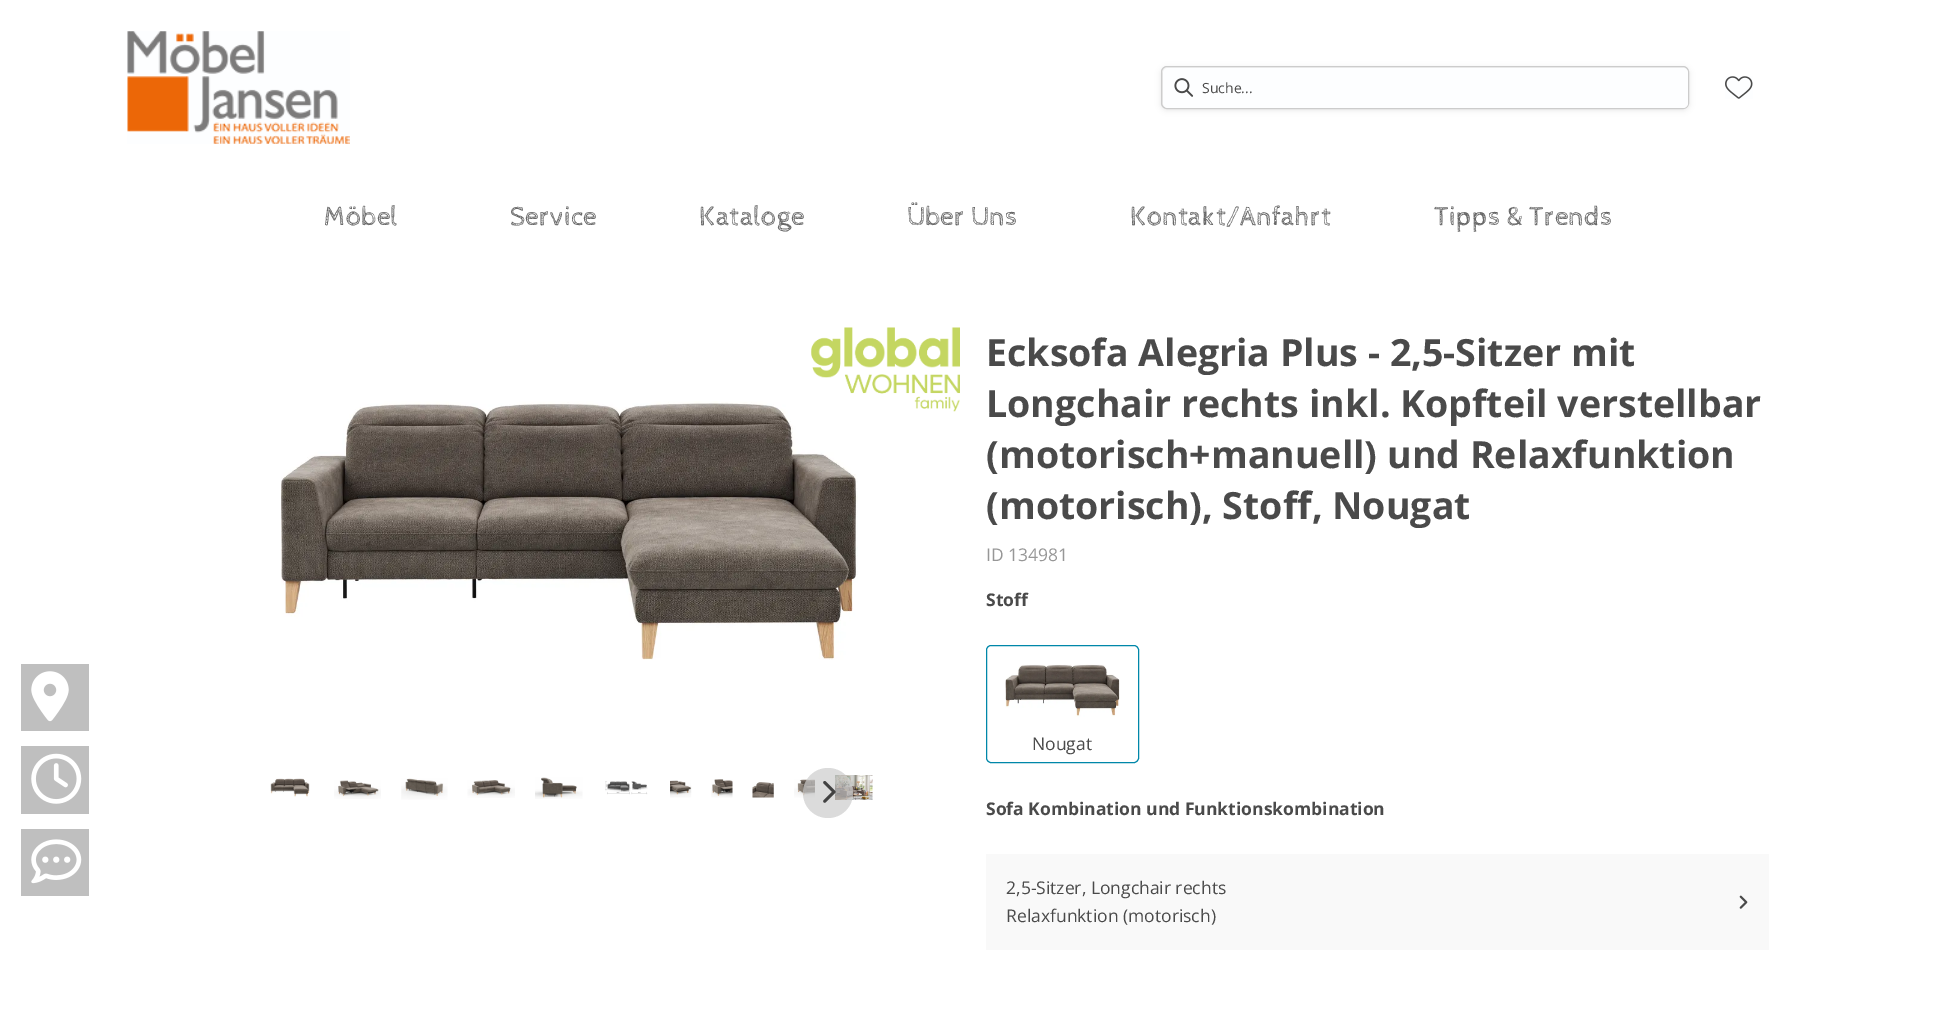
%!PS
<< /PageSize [1946 1023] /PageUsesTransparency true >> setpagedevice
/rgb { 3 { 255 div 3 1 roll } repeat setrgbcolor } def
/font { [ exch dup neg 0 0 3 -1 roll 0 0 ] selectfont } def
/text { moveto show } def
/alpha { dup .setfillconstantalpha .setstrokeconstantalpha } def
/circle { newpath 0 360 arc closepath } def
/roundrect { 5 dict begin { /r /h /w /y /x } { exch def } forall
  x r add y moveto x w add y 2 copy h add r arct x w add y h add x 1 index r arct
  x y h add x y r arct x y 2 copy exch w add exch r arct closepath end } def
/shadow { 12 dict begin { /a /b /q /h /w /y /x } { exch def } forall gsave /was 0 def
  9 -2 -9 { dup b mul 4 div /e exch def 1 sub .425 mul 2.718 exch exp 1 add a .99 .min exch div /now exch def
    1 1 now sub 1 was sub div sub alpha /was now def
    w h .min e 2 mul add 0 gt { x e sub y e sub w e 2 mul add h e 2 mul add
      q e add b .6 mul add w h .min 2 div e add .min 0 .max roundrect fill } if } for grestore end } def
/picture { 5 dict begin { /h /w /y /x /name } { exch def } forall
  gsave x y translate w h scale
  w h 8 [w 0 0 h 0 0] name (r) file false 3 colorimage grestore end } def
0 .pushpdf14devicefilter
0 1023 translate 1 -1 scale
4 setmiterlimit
255 255 255 rgb
0 0 1946 1023 rectfill
(img_01.rgb) 127 31 223 113 picture
0 0 0 rgb
1161 68 528 42 6 3 0.1 shadow
204 204 204 rgb
1161.5 66.5 527 42 5.5 roundrect stroke
253 254 255 rgb
1163 68 525 40 5 roundrect fill
(img_02.rgb) 1174 78 20 19 picture
(img_03.rgb) 1725 76 28 23 picture
191 191 191 rgb
21 664 68 67 rectfill
(img_04.rgb) 31 671 38 51 picture
21 746 68 68 rectfill
(img_05.rgb) 31 753 51 51 picture
21 829 68 67 rectfill
(img_06.rgb) 31 839 51 45 picture
(img_08.rgb) 281 401 577 259 picture
(img_07.rgb) 811 327 149 85 picture
(img_19.rgb) 794 779 21 19 picture
(img_20.rgb) 835 775 38 25 picture
0.7 alpha
204 204 204 rgb
828 793 25 circle fill
1 alpha
(img_09.rgb) 823 781 13 22 picture
(img_10.rgb) 270 778 40 19 picture
(img_11.rgb) 334 780 47 19 picture
(img_12.rgb) 401 778 47 22 picture
(img_13.rgb) 467 780 48 18 picture
(img_14.rgb) 535 777 48 22 picture
(img_15.rgb) 605 781 43 14 picture
(img_16.rgb) 670 780 22 18 picture
(img_17.rgb) 711 779 22 19 picture
(img_18.rgb) 752 782 22 16 picture
0 135 169 rgb
986.5 645.5 152 117 4.5 roundrect stroke
(img_21.rgb) 1005 664 115 53 picture
249 249 249 rgb
986 854 783 96 rectfill
(img_22.rgb) 1739 895 9 14 picture
/OpenSans-Regular 14 font
74 74 74 rgb
(Suche...) 1202 93 text
/CabinSketch-Regular 27.5 font
104 104 104 rgb
(Möbel) 324 225 text
(Service) 510 225 text
(Kataloge) 699 225 text
(Über Uns) 907 225 text
(Kontakt/Anfahrt) 1130 225 text
(Tipps & Trends) 1434 225 text
/OpenSans-Bold 37.5 font
74 74 74 rgb
(Ecksofa Alegria Plus - 2,5-Sitzer mit) 986 366 text
(Longchair rechts inkl. Kopfteil verstellbar) 986 417 text
(\(motorisch+manuell\) und Relaxfunktion) 986 468 text
(\(motorisch\), Stoff, Nougat) 986 519 text
/OpenSans-Regular 17.5 font
151 151 151 rgb
(ID 134981) 986 561 text
/OpenSans-Bold 17.5 font
74 74 74 rgb
(Stoff) 986 606 text
/OpenSans-Regular 17.5 font
(Nougat) 1032 750 text
/OpenSans-Bold 17.5 font
(Sofa Kombination und Funktionskombination) 986 815 text
/OpenSans-Regular 17.5 font
(2,5-Sitzer, Longchair rechts) 1006 894 text
(Relaxfunktion \(motorisch\)) 1006 922 text
.poppdf14devicefilter showpage
